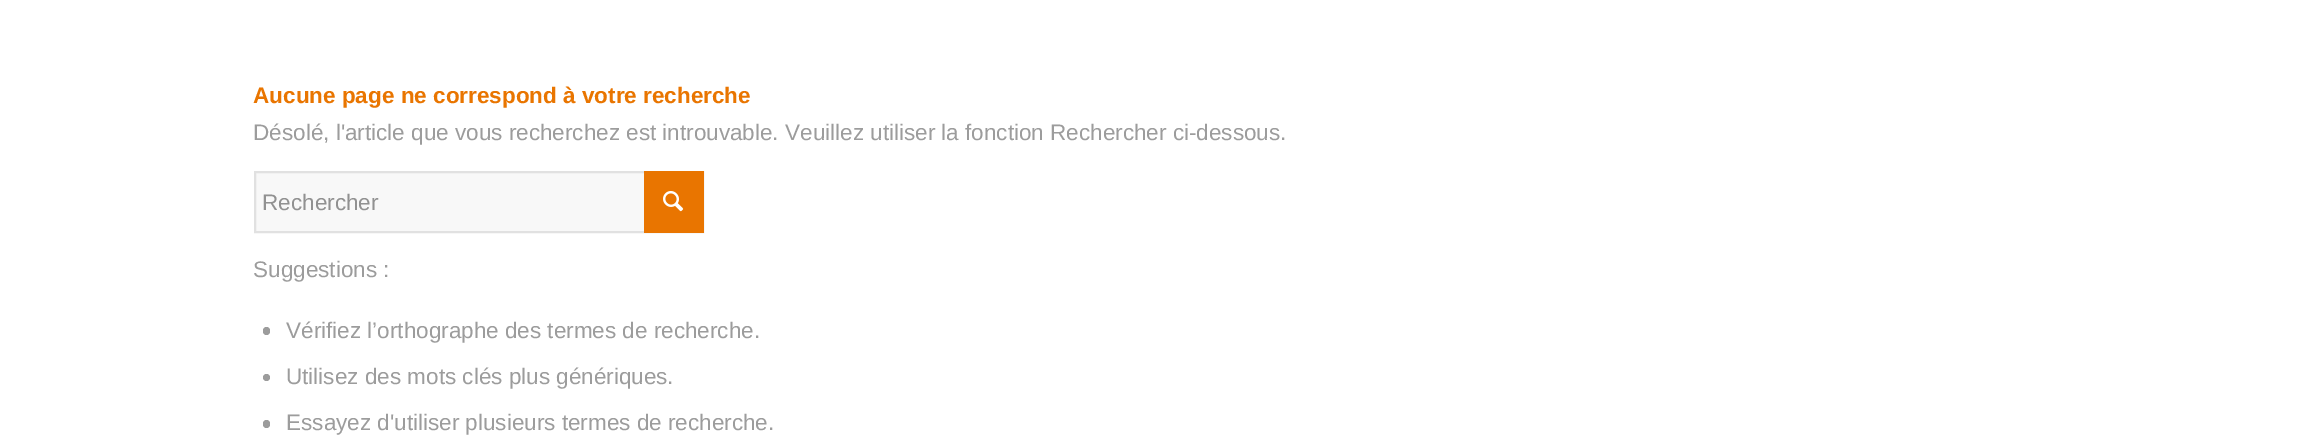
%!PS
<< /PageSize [2320 436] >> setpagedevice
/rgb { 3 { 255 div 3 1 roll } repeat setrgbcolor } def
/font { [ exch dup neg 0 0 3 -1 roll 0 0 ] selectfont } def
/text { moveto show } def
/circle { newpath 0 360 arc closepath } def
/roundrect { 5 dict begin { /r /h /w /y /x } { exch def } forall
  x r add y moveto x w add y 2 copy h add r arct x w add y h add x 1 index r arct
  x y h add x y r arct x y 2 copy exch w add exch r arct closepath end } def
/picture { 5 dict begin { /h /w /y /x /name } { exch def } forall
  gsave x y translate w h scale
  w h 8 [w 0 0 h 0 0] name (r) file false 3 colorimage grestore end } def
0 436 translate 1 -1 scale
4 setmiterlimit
255 255 255 rgb
0 0 2320 436 rectfill
248 248 248 rgb
256 173 388 58 rectfill
225 225 225 rgb
2 setlinewidth
255 172 448 60 rectstroke
233 117 0 rgb
644 171 60 62 rectfill
(img_01.rgb) 663 191 21 21 picture
156 156 156 rgb
263 327 7 8 3.5 roundrect fill
266.5 377.5 3.5 circle fill
263 420 7 8 3.5 roundrect fill
/LiberationSans-Bold 22.5 font
233 117 0 rgb
(Aucune page ne correspond à votre recherche) 253 103 text
/LiberationSans-Regular 22.5 font
156 156 156 rgb
(Désolé, l'article que vous recherchez est introuvable. Veuillez utiliser la fonction Rechercher ci-dessous.) 253 140 text
145 145 145 rgb
(Rechercher) 262 210 text
156 156 156 rgb
(Suggestions :) 253 277 text
(Vérifiez l’orthographe des termes de recherche.) 286 338 text
(Utilisez des mots clés plus génériques.) 286 384 text
(Essayez d'utiliser plusieurs termes de recherche.) 286 430 text
showpage
